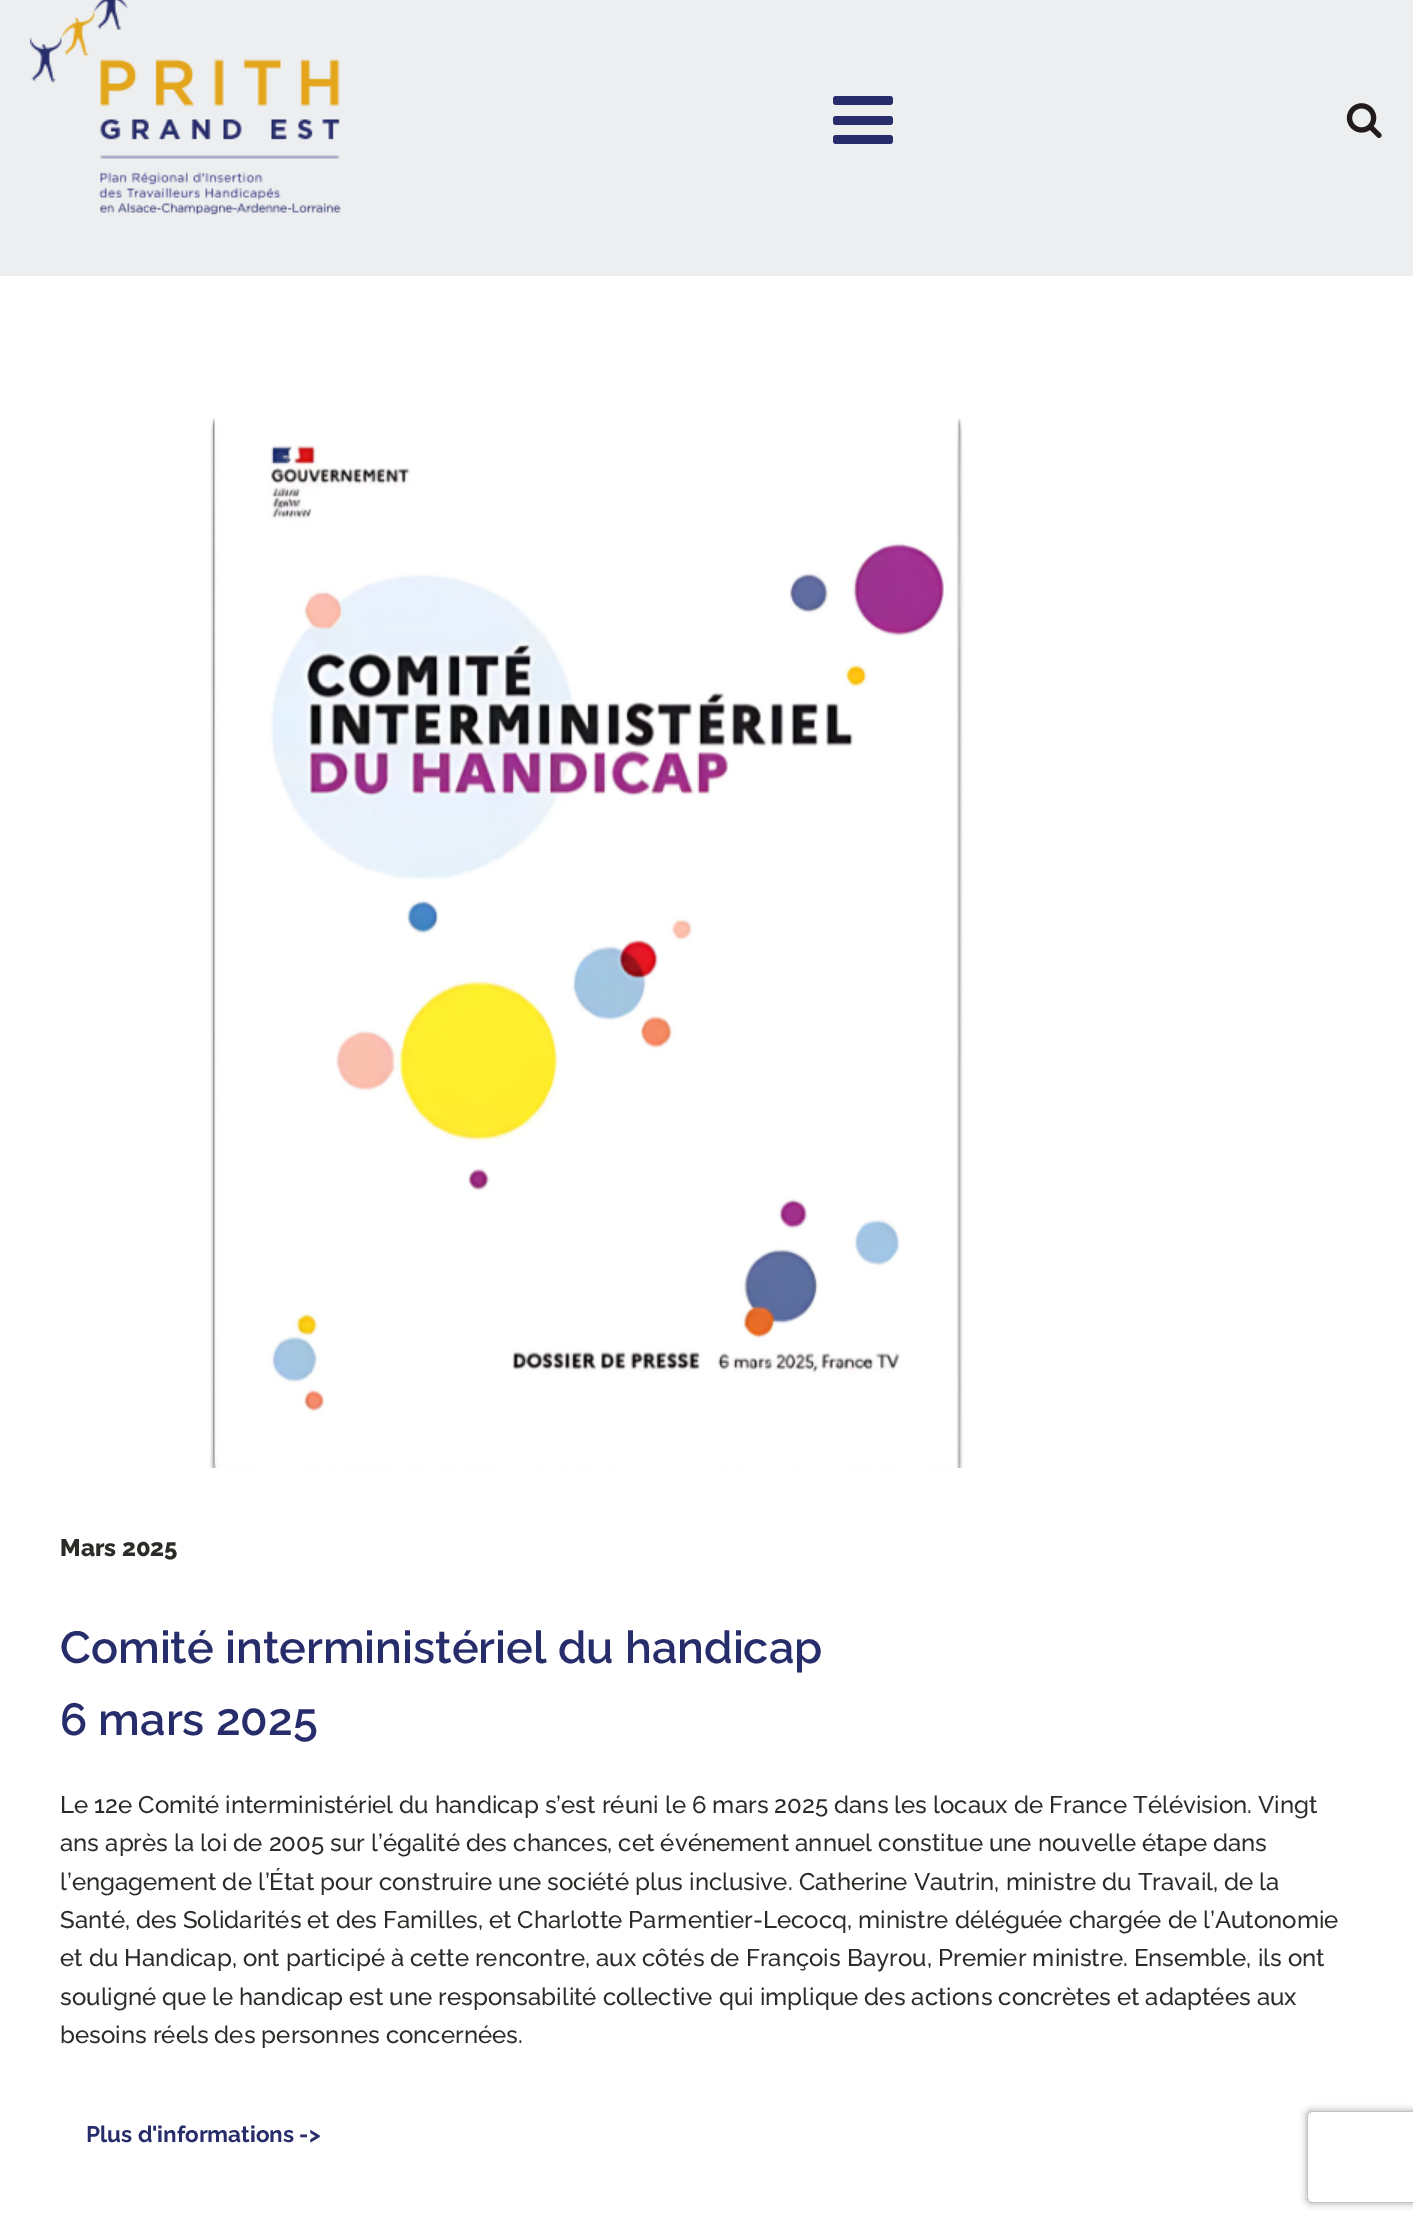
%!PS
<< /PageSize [1413 2222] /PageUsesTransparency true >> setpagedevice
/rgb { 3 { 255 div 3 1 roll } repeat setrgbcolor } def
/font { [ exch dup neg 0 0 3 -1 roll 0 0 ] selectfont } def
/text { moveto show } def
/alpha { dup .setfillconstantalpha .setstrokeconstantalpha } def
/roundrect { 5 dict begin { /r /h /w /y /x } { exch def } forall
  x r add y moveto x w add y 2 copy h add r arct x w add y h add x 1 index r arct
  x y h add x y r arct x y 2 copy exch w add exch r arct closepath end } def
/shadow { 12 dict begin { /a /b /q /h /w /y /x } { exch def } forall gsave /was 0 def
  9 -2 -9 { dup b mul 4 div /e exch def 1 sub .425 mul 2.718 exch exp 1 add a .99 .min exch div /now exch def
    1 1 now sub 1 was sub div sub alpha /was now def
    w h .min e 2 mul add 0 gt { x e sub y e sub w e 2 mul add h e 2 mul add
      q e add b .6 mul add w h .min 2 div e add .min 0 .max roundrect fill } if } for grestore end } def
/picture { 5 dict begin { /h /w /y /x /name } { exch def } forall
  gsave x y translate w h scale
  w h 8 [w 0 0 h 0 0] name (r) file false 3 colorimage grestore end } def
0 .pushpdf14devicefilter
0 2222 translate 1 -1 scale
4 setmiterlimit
255 255 255 rgb
0 0 1413 2222 rectfill
236 238 239 rgb
0 0 1413 276 rectfill
(img_01.rgb) 30 0 311 215 picture
39 44 107 rgb
833 96 60 9 3 roundrect fill
833 116 60 9 3 roundrect fill
833 135 60 9 3 roundrect fill
(img_02.rgb) 1346 103 36 35 picture
(img_03.rgb) 209 418 756 1050 picture
gsave
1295 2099 moveto 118 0 rlineto 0 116 rlineto -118 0 rlineto closepath 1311 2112 moveto 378 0 rlineto 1.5 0 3 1.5 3 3 rcurveto 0 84 rlineto 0 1.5 -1.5 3 -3 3 rcurveto -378 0 rlineto -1.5 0 -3 -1.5 -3 -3 rcurveto 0 -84 rlineto 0 -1.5 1.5 -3 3 -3 rcurveto closepath eoclip newpath
128 128 128 rgb
1308 2112 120 90 3 4 1 shadow
grestore
/Raleway-ExtraBold 24 font
43 44 40 rgb
(Mars 2025) 60 1556 text
/Raleway-SemiBold 45 font
39 44 107 rgb
(Comité interministériel du handicap) 60 1663 text
(6 mars 2025) 60 1735 text
/Raleway-Medium 24 font
43 44 40 rgb
(Le 12e Comité interministériel du handicap s’est réuni le 6 mars 2025 dans les locaux de France Télévision. Vingt) 60 1813 text
(ans après la loi de 2005 sur l’égalité des chances, cet événement annuel constitue une nouvelle étape dans) 60 1851 text
(l’engagement de l’État pour construire une société plus inclusive. Catherine Vautrin, ministre du Travail, de la) 60 1890 text
(Santé, des Solidarités et des Familles, et Charlotte Parmentier-Lecocq, ministre déléguée chargée de l’Autonomie) 60 1928 text
(et du Handicap, ont participé à cette rencontre, aux côtés de François Bayrou, Premier ministre. Ensemble, ils ont) 60 1966 text
(souligné que le handicap est une responsabilité collective qui implique des actions concrètes et adaptées aux) 60 2005 text
(besoins réels des personnes concernées.) 60 2043 text
/Raleway-Bold 22.5 font
39 44 107 rgb
(Plus d'informations ->) 86 2142 text
.poppdf14devicefilter showpage
